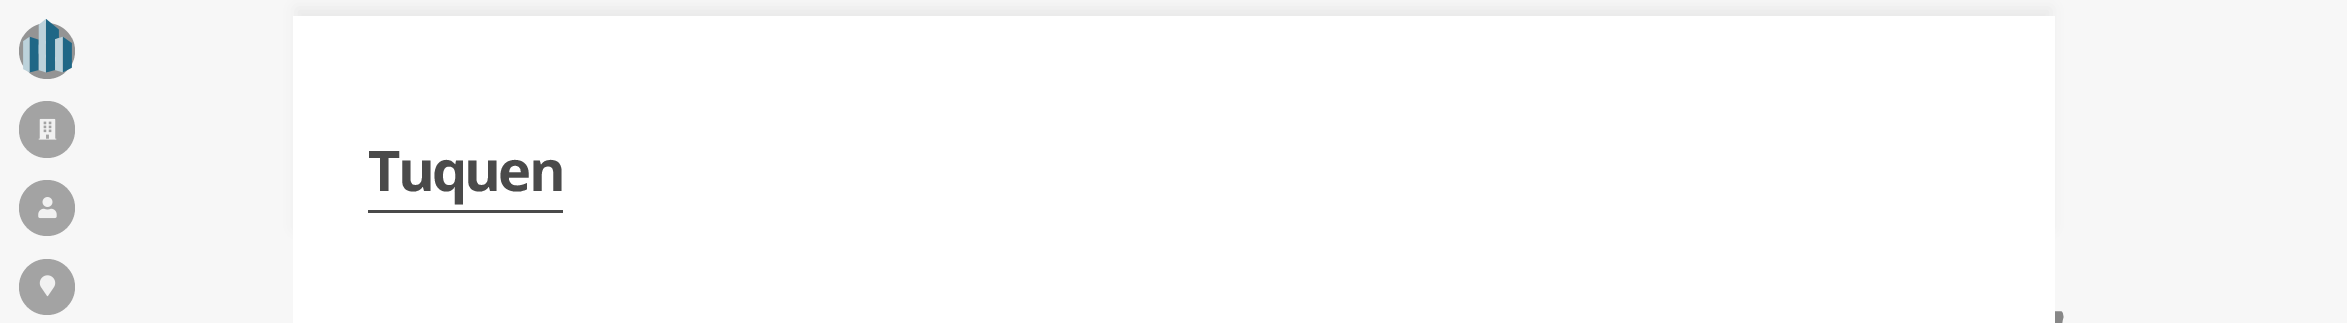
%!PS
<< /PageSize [2347 323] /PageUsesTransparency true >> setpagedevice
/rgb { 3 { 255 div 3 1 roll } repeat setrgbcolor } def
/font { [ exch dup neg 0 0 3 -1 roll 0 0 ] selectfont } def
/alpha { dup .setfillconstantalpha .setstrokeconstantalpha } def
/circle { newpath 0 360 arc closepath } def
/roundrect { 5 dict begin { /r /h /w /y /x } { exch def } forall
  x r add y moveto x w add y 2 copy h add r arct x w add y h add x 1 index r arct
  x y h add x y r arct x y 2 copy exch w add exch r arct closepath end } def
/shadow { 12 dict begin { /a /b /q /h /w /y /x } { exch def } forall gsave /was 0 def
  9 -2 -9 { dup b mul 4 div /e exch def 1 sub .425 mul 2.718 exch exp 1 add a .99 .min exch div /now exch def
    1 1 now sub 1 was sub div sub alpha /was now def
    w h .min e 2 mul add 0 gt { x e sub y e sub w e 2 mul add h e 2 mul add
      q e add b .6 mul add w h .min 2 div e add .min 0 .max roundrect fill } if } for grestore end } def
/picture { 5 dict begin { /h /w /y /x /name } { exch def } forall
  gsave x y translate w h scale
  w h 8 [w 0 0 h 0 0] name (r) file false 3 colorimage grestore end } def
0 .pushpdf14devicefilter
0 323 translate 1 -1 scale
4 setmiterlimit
247 247 247 rgb
0 0 2347 323 rectfill
148 148 148 rgb
47 51 28 circle fill
(img_02.rgb) 38 40 18 22 picture
(img_01.rgb) 23 19 49 54 picture
163 163 163 rgb
19 101 56 57 28 roundrect fill
(img_03.rgb) 38 118 19 22 picture
47 208 28 circle fill
(img_04.rgb) 38 197 19 22 picture
47 287 28 circle fill
(img_05.rgb) 39 275 17 22 picture
0 0 0 rgb
296 8 1755 220 0 7.5 0.05 shadow
255 255 255 rgb
293 16 1762 307 rectfill
74 74 74 rgb
368 210 195 3 rectfill
(img_06.rgb) 2055 311 9 12 picture
/OpenSans-Bold 56 font
368 191 moveto -2.75 0 (Tuquen) ashow
.poppdf14devicefilter showpage
